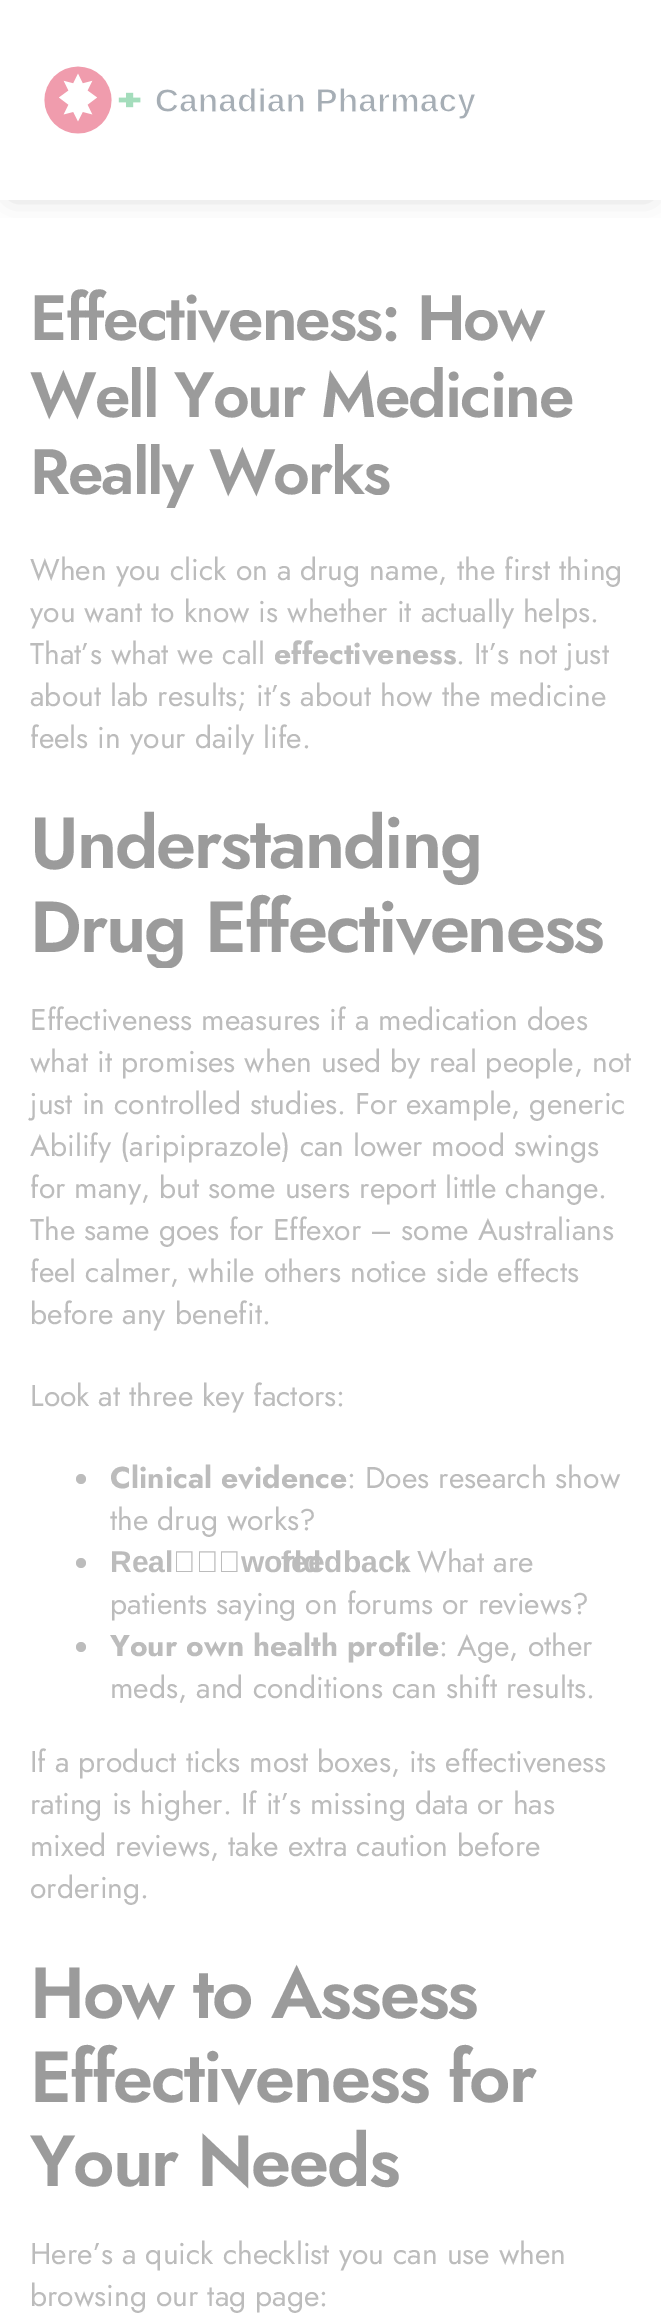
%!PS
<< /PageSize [661 2322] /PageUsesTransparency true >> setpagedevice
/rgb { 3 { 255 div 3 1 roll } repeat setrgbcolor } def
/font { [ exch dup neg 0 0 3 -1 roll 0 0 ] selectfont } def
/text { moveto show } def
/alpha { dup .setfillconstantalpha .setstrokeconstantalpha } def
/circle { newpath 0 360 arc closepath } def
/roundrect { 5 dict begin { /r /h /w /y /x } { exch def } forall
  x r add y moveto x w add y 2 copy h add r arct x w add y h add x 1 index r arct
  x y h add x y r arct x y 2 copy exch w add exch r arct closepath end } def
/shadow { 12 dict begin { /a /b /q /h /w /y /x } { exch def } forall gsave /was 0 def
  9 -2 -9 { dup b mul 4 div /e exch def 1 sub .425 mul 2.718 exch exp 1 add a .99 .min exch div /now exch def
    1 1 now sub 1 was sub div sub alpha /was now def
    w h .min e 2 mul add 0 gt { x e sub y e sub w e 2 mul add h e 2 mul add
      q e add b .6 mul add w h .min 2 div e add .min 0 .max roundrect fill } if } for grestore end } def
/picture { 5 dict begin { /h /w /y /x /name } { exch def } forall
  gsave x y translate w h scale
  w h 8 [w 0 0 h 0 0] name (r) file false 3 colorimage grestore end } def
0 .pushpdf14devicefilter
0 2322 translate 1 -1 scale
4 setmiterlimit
255 255 255 rgb
0 0 661 2322 rectfill
gsave
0 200 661 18 rectclip
148 148 148 rgb
12 18 638 176 0 14 0.5 shadow
grestore
(img_01.rgb) 44 66 432 68 picture
188 188 188 rgb
81 1479 5 circle fill
81 1563 5 circle fill
81 1647 5 circle fill
/Jost-SemiBold 64 font
155 155 155 rgb
30 340 moveto -2 0 (Effectiveness: How) ashow
30 417 moveto -2 0 (Well Your Medicine) ashow
30 494 moveto -2 0 (Really Works) ashow
/Jost-Regular 30 font
188 188 188 rgb
(When you click on a drug name, the first thing) 30 580 text
(you want to know is whether it actually helps.) 30 622 text
(That’s what we call) 30 664 text
/Jost-Bold 30 font
(effectiveness) 274 664 text
/Jost-Regular 30 font
(. It’s not just) 456 664 text
(about lab results; it’s about how the medicine) 30 706 text
(feels in your daily life.) 30 748 text
/Jost-SemiBold 72 font
155 155 155 rgb
30 868 moveto -2 0 (Understanding) ashow
gsave
30 800 602 168 rectclip
30 952 moveto -2 0 (Drug Effectiveness) ashow
grestore
/Jost-Regular 30 font
188 188 188 rgb
(Effectiveness measures if a medication does) 30 1030 text
(what it promises when used by real people, not) 30 1072 text
(just in controlled studies. For example, generic) 30 1114 text
(Abilify \(aripiprazole\) can lower mood swings) 30 1156 text
(for many, but some users report little change.) 30 1198 text
(The same goes for Effexor – some Australians) 30 1240 text
(feel calmer, while others notice side effects) 30 1282 text
(before any benefit.) 30 1324 text
(Look at three key factors:) 30 1406 text
/Jost-Bold 30 font
(Clinical evidence) 110 1488 text
/Jost-Regular 30 font
(: Does research show) 347 1488 text
(the drug works?) 110 1530 text
/LiberationSans-Bold 30 font
110 1572 moveto -2 0 32 (Real‑world) widthshow
281 1572 moveto -2 0 32 (feedback) widthshow
/Jost-Regular 30 font
(: What are) 399 1572 text
(patients saying on forums or reviews?) 110 1614 text
/Jost-Bold 30 font
(Your own health profile) 110 1656 text
/Jost-Regular 30 font
(: Age, other) 439 1656 text
(meds, and conditions can shift results.) 110 1698 text
(If a product ticks most boxes, its effectiveness) 30 1772 text
(rating is higher. If it’s missing data or has) 30 1814 text
(mixed reviews, take extra caution before) 30 1856 text
(ordering.) 30 1898 text
/Jost-SemiBold 72 font
155 155 155 rgb
30 2018 moveto -2 0 (How to Assess) ashow
30 2102 moveto -2 0 (Effectiveness for) ashow
30 2186 moveto -2 0 (Your Needs) ashow
/Jost-Regular 30 font
188 188 188 rgb
(Here’s a quick checklist you can use when) 30 2264 text
(browsing our tag page:) 30 2306 text
.poppdf14devicefilter showpage
